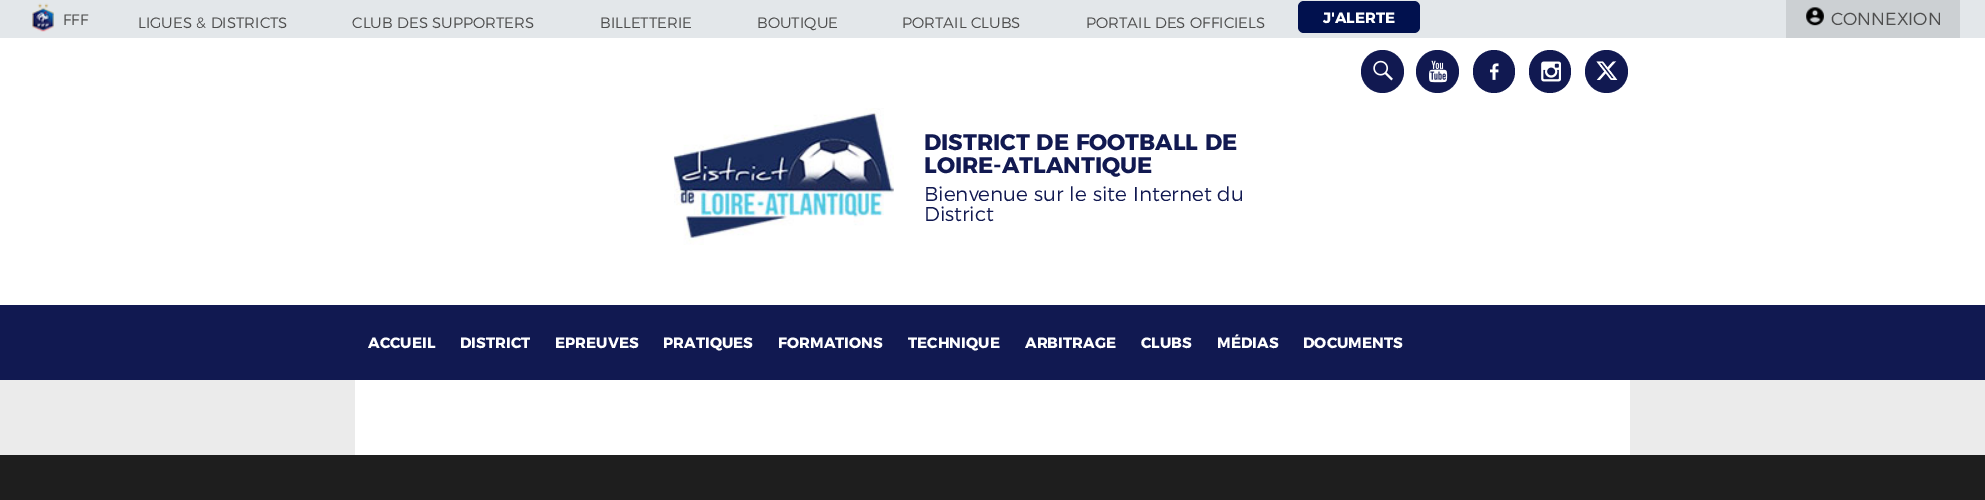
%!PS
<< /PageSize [1985 500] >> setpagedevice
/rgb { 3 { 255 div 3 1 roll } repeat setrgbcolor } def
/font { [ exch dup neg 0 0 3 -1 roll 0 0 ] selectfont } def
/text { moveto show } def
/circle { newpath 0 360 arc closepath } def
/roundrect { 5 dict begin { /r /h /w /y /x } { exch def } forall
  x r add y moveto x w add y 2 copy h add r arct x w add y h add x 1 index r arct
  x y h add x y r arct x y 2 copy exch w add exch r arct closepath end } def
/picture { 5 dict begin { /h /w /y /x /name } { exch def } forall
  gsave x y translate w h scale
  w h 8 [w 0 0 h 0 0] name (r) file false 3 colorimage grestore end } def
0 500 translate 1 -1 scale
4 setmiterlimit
235 235 235 rgb
0 0 1985 500 rectfill
227 231 234 rgb
0 0 1985 38 rectfill
(img_01.rgb) 32 3 22 29 picture
1 17 78 rgb
1298 1 122 32 6 roundrect fill
204 208 211 rgb
1786 0 174 38 rectfill
(img_02.rgb) 1806 7 18 19 picture
255 255 255 rgb
0 38 1985 267 rectfill
17 25 81 rgb
1382.5 71.5 21.5 circle fill
(img_03.rgb) 1373 60 20 21 picture
1437.5 71.5 21.5 circle fill
(img_04.rgb) 1429 60 19 23 picture
1473 50 42 43 21 roundrect fill
(img_05.rgb) 1490 63 9 17 picture
1529 50 42 43 21 roundrect fill
(img_06.rgb) 1541 61 20 21 picture
1606.5 71.5 21.5 circle fill
(img_07.rgb) 1596 61 22 19 picture
(img_08.rgb) 673 108 221 137 picture
0 305 1985 75 rectfill
255 255 255 rgb
355 380 1275 75 rectfill
30 30 30 rgb
0 455 1985 45 rectfill
/Montserrat-Light 15 font
78 78 78 rgb
(FFF) 63 25 text
(LIGUES & DISTRICTS) 138 28 text
(CLUB DES SUPPORTERS) 352 28 text
(BILLETTERIE) 600 28 text
(BOUTIQUE) 757 28 text
(PORTAIL CLUBS) 902 28 text
(PORTAIL DES OFFICIELS) 1086 28 text
/Montserrat-Bold 15 font
255 255 255 rgb
(J'ALERTE) 1323 23 text
/Montserrat-Light 17.5 font
78 78 78 rgb
(CONNEXION) 1831 25 text
/Montserrat-Bold 22.5 font
17 25 81 rgb
(DISTRICT DE FOOTBALL DE) 924 150 text
(LOIRE-ATLANTIQUE) 924 173 text
/Montserrat-Light 20 font
(Bienvenue sur le site Internet du) 924 201 text
(District) 924 221 text
/Montserrat-Bold 15 font
255 255 255 rgb
(ACCUEIL) 368 348 text
(DISTRICT) 460 348 text
(EPREUVES) 555 348 text
(PRATIQUES) 663 348 text
(FORMATIONS) 778 348 text
(TECHNIQUE) 908 348 text
(ARBITRAGE) 1025 348 text
(CLUBS) 1141 348 text
(MÉDIAS) 1217 348 text
(DOCUMENTS) 1303 348 text
showpage
